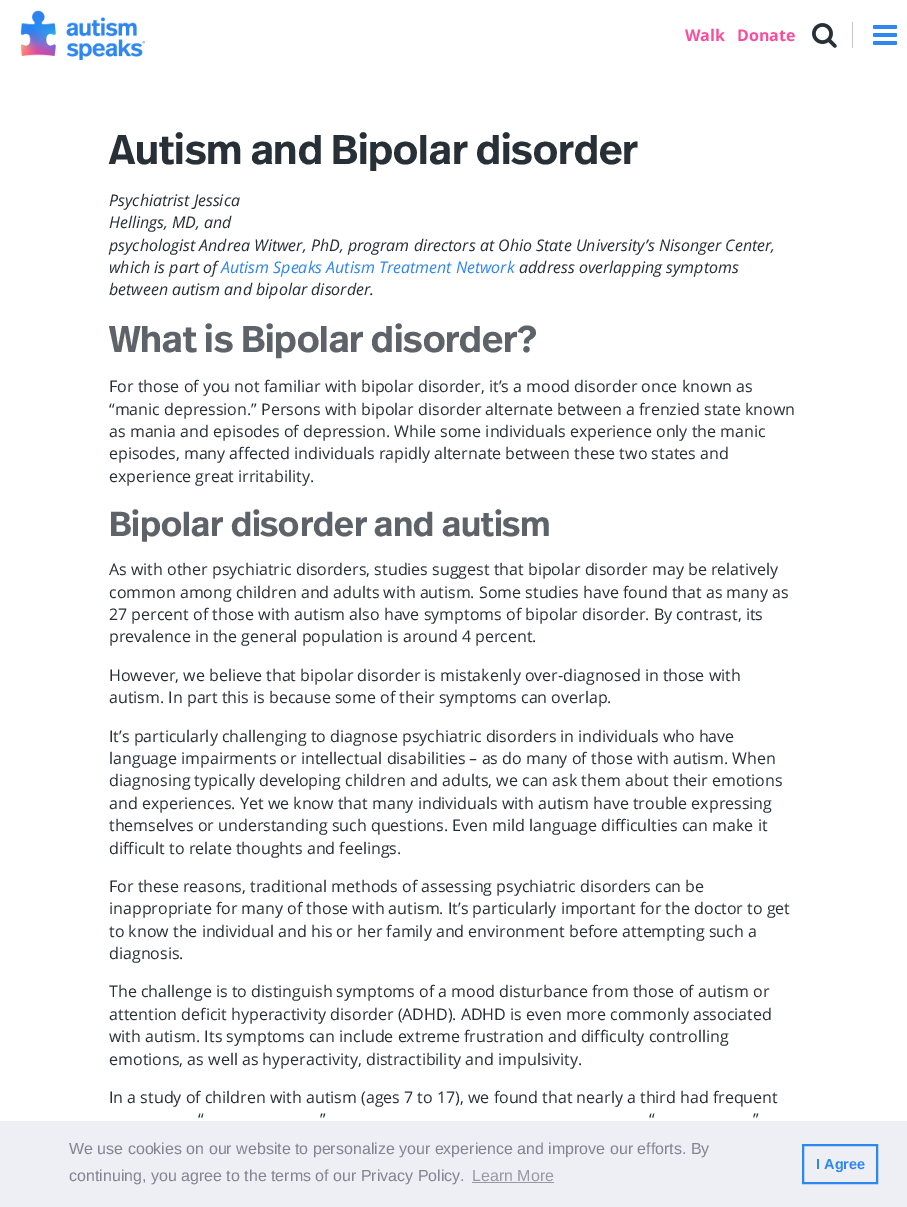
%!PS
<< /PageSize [907 1207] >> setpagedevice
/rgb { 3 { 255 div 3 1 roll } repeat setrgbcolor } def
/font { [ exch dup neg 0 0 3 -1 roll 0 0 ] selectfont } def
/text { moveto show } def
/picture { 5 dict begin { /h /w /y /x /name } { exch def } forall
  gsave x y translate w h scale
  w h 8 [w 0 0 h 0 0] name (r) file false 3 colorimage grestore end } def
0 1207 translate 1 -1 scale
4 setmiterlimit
255 255 255 rgb
0 0 907 1207 rectfill
(img_01.rgb) 20 10 125 50 picture
198 198 198 rgb
852 22 1 26 rectfill
(img_02.rgb) 812 23 25 25 picture
(img_03.rgb) 873 25 24 20 picture
237 239 245 rgb
0 1121 907 86 rectfill
152 153 165 rgb
472 1182 82 1 rectfill
46 134 239 rgb
2 setlinewidth
803 1145 74 38 rectstroke
/OpenSans-Bold 16 font
247 79 156 rgb
(Walk) 685 41 text
(Donate) 737 41 text
/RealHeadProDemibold-SemiBold 41.3 font
39 47 55 rgb
(Autism and Bipolar disorder) 109 164 text
/OpenSans-Italic 16 font
(Psychiatrist Jessica) 109 206 text
(Hellings, MD, and) 109 228 text
(psychologist Andrea Witwer, PhD, program directors at Ohio State University’s Nisonger Center,) 109 251 text
(which is part of) 109 273 text
46 134 239 rgb
(Autism Speaks Autism Treatment Network) 221 273 text
39 47 55 rgb
(address overlapping symptoms) 519 273 text
(between autism and bipolar disorder.) 109 295 text
/RealHeadProDemibold-SemiBold 37.25 font
93 99 105 rgb
(What is Bipolar disorder?) 109 352 text
/OpenSans-Regular 16 font
39 47 55 rgb
(For those of you not familiar with bipolar disorder, it’s a mood disorder once known as) 109 392 text
(“manic depression.” Persons with bipolar disorder alternate between a frenzied state known) 109 415 text
(as mania and episodes of depression. While some individuals experience only the manic) 109 437 text
(episodes, many affected individuals rapidly alternate between these two states and) 109 459 text
(experience great irritability.) 109 482 text
/RealHeadProDemibold-SemiBold 34.7 font
93 99 105 rgb
(Bipolar disorder and autism) 109 536 text
/OpenSans-Regular 16 font
39 47 55 rgb
(As with other psychiatric disorders, studies suggest that bipolar disorder may be relatively) 109 575 text
(common among children and adults with autism. Some studies have found that as many as) 109 598 text
(27 percent of those with autism also have symptoms of bipolar disorder. By contrast, its) 109 620 text
(prevalence in the general population is around 4 percent.) 109 642 text
(However, we believe that bipolar disorder is mistakenly over-diagnosed in those with) 109 681 text
(autism. In part this is because some of their symptoms can overlap.) 109 703 text
(It’s particularly challenging to diagnose psychiatric disorders in individuals who have) 109 742 text
(language impairments or intellectual disabilities – as do many of those with autism. When) 109 764 text
(diagnosing typically developing children and adults, we can ask them about their emotions) 109 786 text
(and experiences. Yet we know that many individuals with autism have trouble expressing) 109 809 text
(themselves or understanding such questions. Even mild language difficulties can make it) 109 831 text
(difficult to relate thoughts and feelings.) 109 854 text
(For these reasons, traditional methods of assessing psychiatric disorders can be) 109 892 text
(inappropriate for many of those with autism. It’s particularly important for the doctor to get) 109 914 text
(to know the individual and his or her family and environment before attempting such a) 109 937 text
(diagnosis.) 109 959 text
(The challenge is to distinguish symptoms of a mood disturbance from those of autism or) 109 997 text
(attention deficit hyperactivity disorder \(ADHD\). ADHD is even more commonly associated) 109 1020 text
(with autism. Its symptoms can include extreme frustration and difficulty controlling) 109 1042 text
(emotions, as well as hyperactivity, distractibility and impulsivity.) 109 1065 text
(In a study of children with autism \(ages 7 to 17\), we found that nearly a third had frequent) 109 1103 text
(“) 198 1125 text
(”) 320 1125 text
(“) 649 1125 text
(”) 753 1125 text
/LiberationSans-Regular 16 font
131 131 145 rgb
(We use cookies on our website to personalize your experience and improve our efforts. By) 69 1154 text
(continuing, you agree to the terms of our Privacy Policy.) 69 1181 text
152 153 165 rgb
(Learn More) 472 1181 text
/LiberationSans-Bold 14.5 font
46 134 239 rgb
(I Agree) 816 1169 text
showpage
